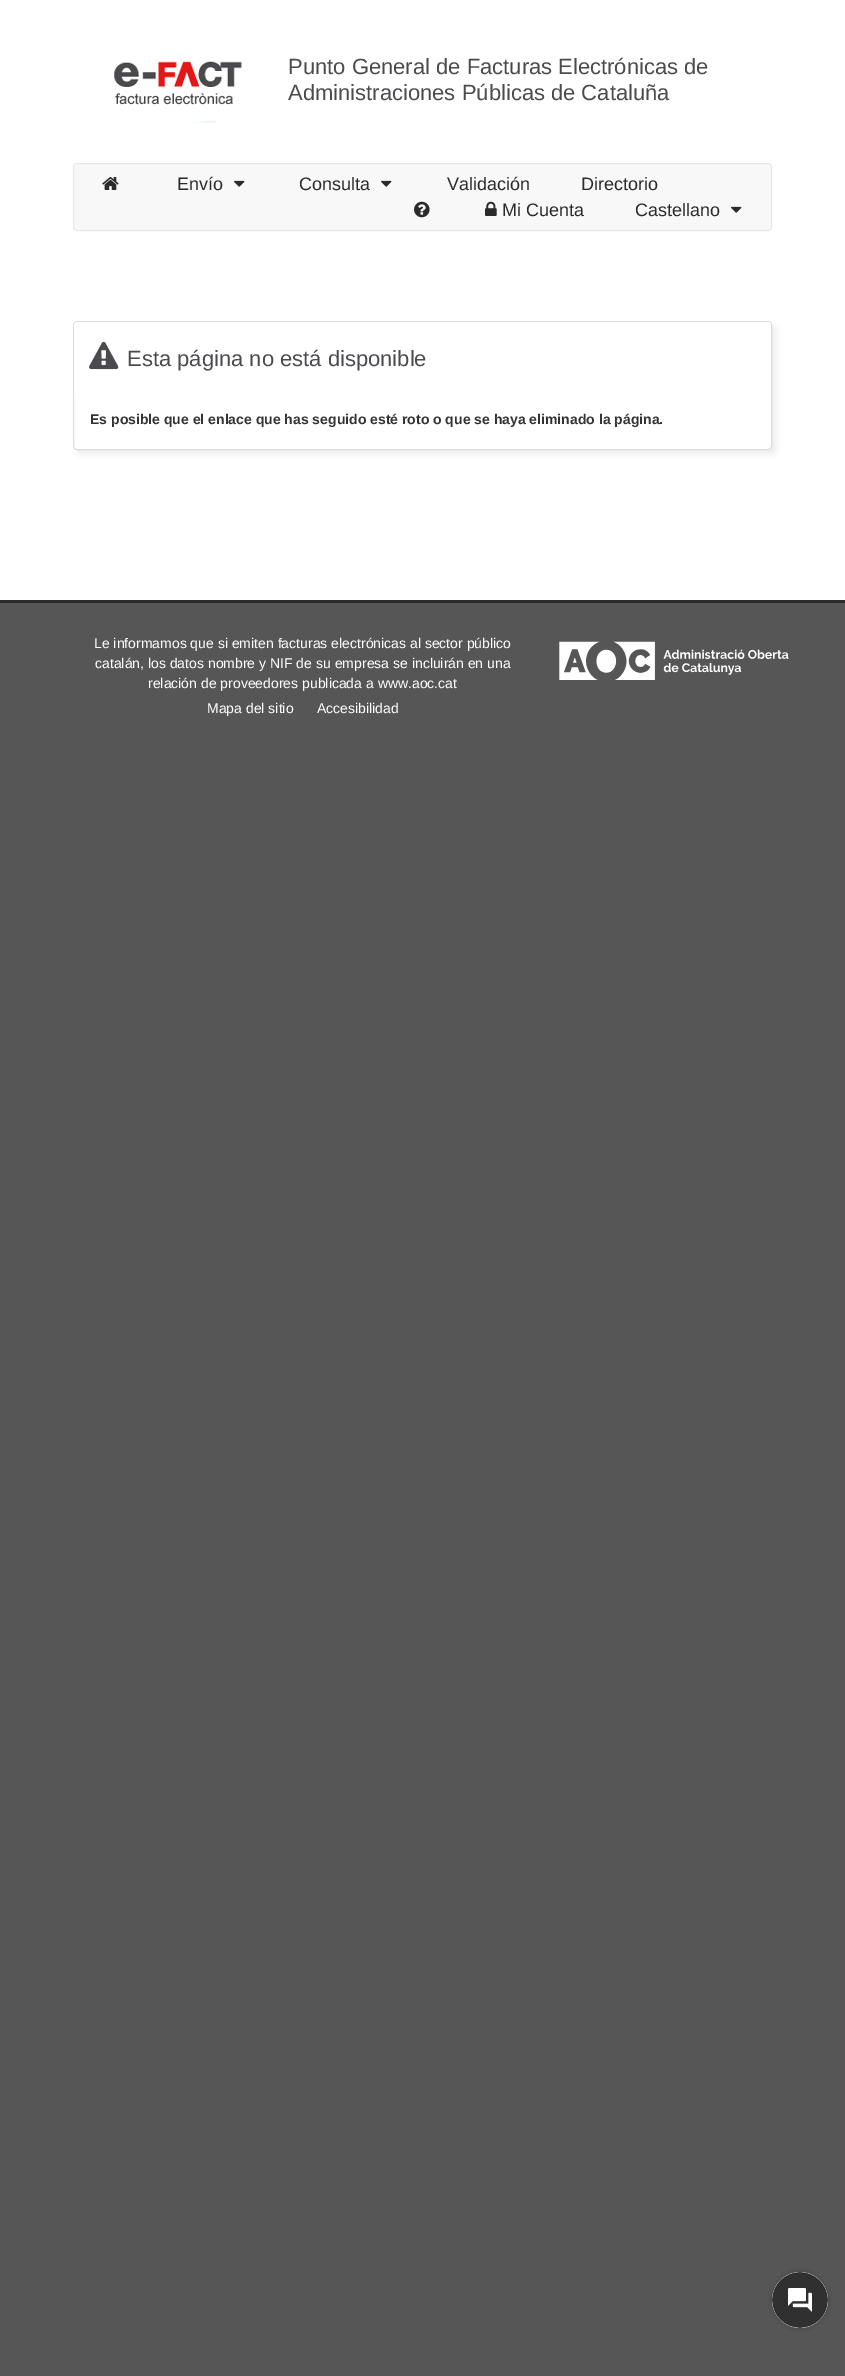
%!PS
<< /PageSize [845 2376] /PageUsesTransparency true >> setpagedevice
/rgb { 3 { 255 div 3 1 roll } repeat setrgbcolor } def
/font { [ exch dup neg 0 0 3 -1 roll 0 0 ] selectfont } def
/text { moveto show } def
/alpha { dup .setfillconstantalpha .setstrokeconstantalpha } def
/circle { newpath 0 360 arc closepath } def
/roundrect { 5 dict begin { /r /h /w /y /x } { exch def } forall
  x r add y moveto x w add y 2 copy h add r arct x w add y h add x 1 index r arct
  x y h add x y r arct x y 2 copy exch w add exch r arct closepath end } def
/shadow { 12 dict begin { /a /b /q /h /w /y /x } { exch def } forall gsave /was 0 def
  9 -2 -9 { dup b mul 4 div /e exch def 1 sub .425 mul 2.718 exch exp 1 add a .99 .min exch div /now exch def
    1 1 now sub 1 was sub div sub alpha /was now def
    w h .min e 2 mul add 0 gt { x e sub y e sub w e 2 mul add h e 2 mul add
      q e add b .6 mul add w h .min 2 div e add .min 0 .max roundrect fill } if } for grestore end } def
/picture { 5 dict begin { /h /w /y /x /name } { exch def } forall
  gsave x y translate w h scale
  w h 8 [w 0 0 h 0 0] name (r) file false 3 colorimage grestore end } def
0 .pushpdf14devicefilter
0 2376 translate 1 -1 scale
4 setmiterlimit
87 86 86 rgb
0 0 845 2376 rectfill
255 255 255 rgb
0 0 845 600 rectfill
(img_01.rgb) 114 59 131 64 picture
248 248 248 rgb
73.5 163.5 698 67 3.5 roundrect gsave fill grestore
231 231 231 rgb
stroke
(img_02.rgb) 102 177 17 13 picture
(img_03.rgb) 234 180 11 7 picture
(img_03.rgb) 381 180 11 7 picture
(img_04.rgb) 414 201 16 17 picture
(img_05.rgb) 485 201 12 15 picture
(img_03.rgb) 731 206 11 7 picture
237 237 237 rgb
77 325 699 129 4 3 1 shadow
255 255 255 rgb
73.5 321.5 698 128 3.5 roundrect gsave fill grestore
221 221 221 rgb
stroke
255 255 255 rgb
77 322 moveto 691 0 rlineto 1.5 0 3 1.5 3 3 rcurveto 0 69 rlineto -697 0 rlineto 0 -69 rlineto 0 -1.5 1.5 -3 3 -3 rcurveto closepath fill
(img_06.rgb) 89 341 30 29 picture
43 43 43 rgb
0 600 845 3 rectfill
(img_07.rgb) 559 641 230 39 picture
0 0 0 rgb
772 2272 56 56 28 2.5 0.2 shadow
255 255 255 rgb
800 2300 28 circle fill
(img_08.rgb) 772 2272 56 56 picture
/LiberationSans-Regular 22 font
75 74 79 rgb
(Punto General de Facturas Electrónicas de) 288 74 text
(Administraciones Públicas de Cataluña) 288 100 text
/LiberationSans-Regular 18 font
43 43 43 rgb
(Envío) 177 190 text
(Consulta) 299 190 text
(Validación) 447 190 text
(Directorio) 581 190 text
(Mi Cuenta) 502 216 text
(Castellano) 635 216 text
/LiberationSans-Regular 22 font
75 74 79 rgb
(Esta página no está disponible) 127 366 text
/LiberationSans-Bold 14 font
51 51 51 rgb
(Es posible que el enlace que has seguido esté roto o que se haya eliminado la página.) 90 424 text
/LiberationSans-Regular 14 font
255 255 255 rgb
(Le informamos que si emiten facturas electrónicas al sector público) 94 648 text
(catalán, los datos nombre y NIF de su empresa se incluirán en una) 95 668 text
(relación de proveedores publicada a www.aoc.cat) 148 688 text
(Mapa del sitio) 207 713 text
(Accesibilidad) 317 713 text
.poppdf14devicefilter showpage
